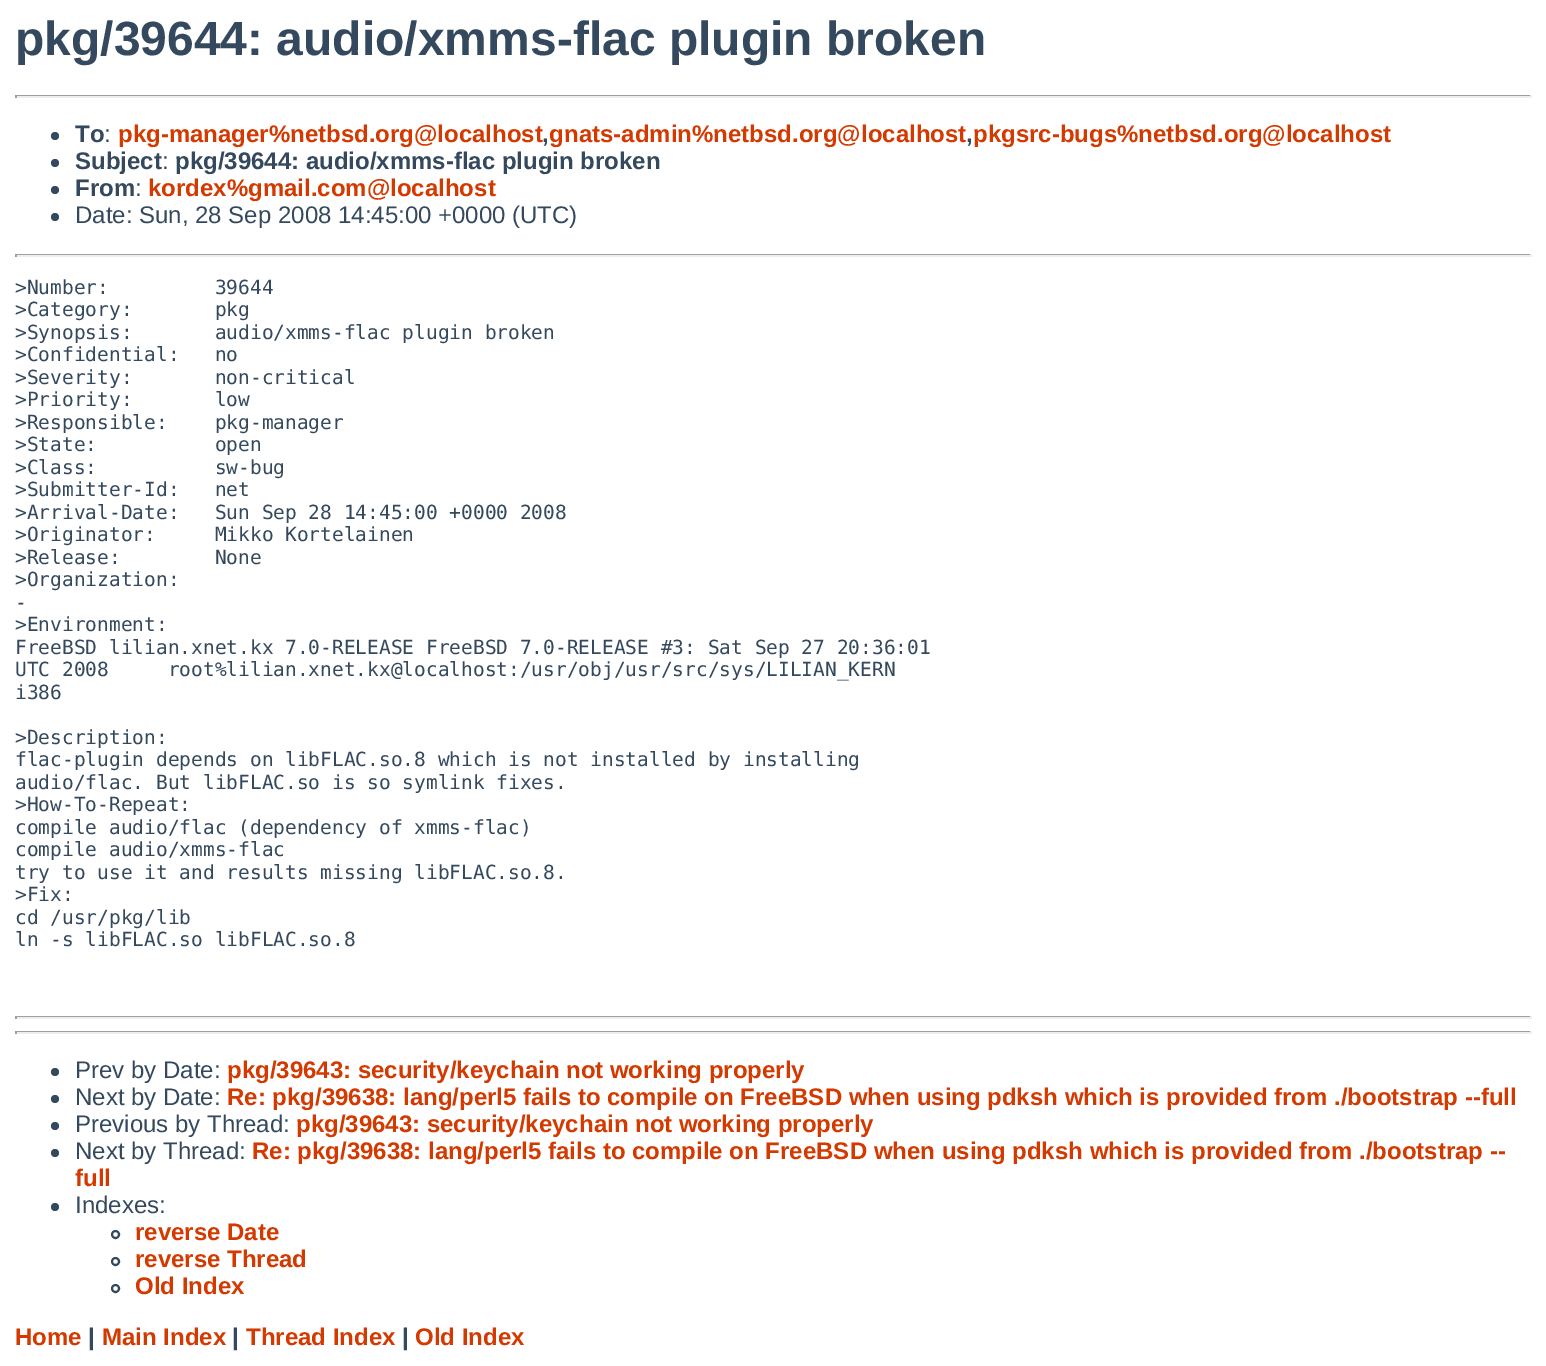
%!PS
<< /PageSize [1546 1366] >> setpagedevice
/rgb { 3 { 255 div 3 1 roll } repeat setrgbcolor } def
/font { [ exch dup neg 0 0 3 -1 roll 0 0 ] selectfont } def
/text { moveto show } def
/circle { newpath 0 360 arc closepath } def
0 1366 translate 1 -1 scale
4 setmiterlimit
255 255 255 rgb
0 0 1546 1366 rectfill
159 159 159 rgb
15 95 1517 1 rectfill
238 238 238 rgb
1530 95 2 3 rectfill
15 96 1517 2 rectfill
159 159 159 rgb
15 95 2 3 rectfill
52 73 94 rgb
55 136 4 circle fill
55 163 4 circle fill
55 190 4 circle fill
55 217 4 circle fill
159 159 159 rgb
15 254 1517 1 rectfill
238 238 238 rgb
1530 254 2 3 rectfill
15 255 1517 2 rectfill
159 159 159 rgb
15 254 2 3 rectfill
15 1016 1517 1 rectfill
238 238 238 rgb
1530 1016 2 3 rectfill
15 1017 1517 2 rectfill
159 159 159 rgb
15 1016 2 3 rectfill
15 1031 1517 1 rectfill
238 238 238 rgb
1530 1031 2 3 rectfill
15 1032 1517 2 rectfill
159 159 159 rgb
15 1031 2 3 rectfill
52 73 94 rgb
55 1072 4 circle fill
55 1099 4 circle fill
55 1126 4 circle fill
55 1153 4 circle fill
55 1207 4 circle fill
2 setlinewidth
115.5 1234.5 3.5 circle stroke
115.5 1261.5 3.5 circle stroke
115.5 1288.5 3.5 circle stroke
/LiberationSans-Bold 48 font
(pkg/39644: audio/xmms-flac plugin broken) 15 55 text
/LiberationSans-Bold 24 font
(To) 75 142 text
/LiberationSans-Regular 24 font
(:) 104 142 text
/LiberationSans-Bold 24 font
212 57 0 rgb
(pkg-manager%netbsd.org@localhost gnats-admin%netbsd.org@localhost pkgsrc-bugs%netbsd.org@localhost) 118 142 text
52 73 94 rgb
(,) 542 142 text
(,) 966 142 text
(Subject) 75 169 text
/LiberationSans-Regular 24 font
(:) 162 169 text
/LiberationSans-Bold 24 font
(pkg/39644: audio/xmms-flac plugin broken) 175 169 text
(From) 75 196 text
/LiberationSans-Regular 24 font
(:) 135 196 text
/LiberationSans-Bold 24 font
212 57 0 rgb
(kordex%gmail.com@localhost) 148 196 text
/LiberationSans-Regular 24 font
52 73 94 rgb
(Date: Sun, 28 Sep 2008 14:45:00 +0000 \(UTC\)) 75 223 text
/DejaVuSansMono-Regular 19.5 font
(>Number:         39644) 15 294 text
(>Category:       pkg) 15 316 text
(>Synopsis:       audio/xmms-flac plugin broken) 15 339 text
(>Confidential:   no) 15 361 text
(>Severity:       non-critical) 15 384 text
(>Priority:       low) 15 406 text
(>Responsible:    pkg-manager) 15 429 text
(>State:          open) 15 451 text
(>Class:          sw-bug) 15 474 text
(>Submitter-Id:   net) 15 496 text
(>Arrival-Date:   Sun Sep 28 14:45:00 +0000 2008) 15 519 text
(>Originator:     Mikko Kortelainen) 15 541 text
(>Release:        None) 15 564 text
(>Organization:) 15 586 text
(-) 15 609 text
(>Environment:) 15 631 text
(FreeBSD lilian.xnet.kx 7.0-RELEASE FreeBSD 7.0-RELEASE #3: Sat Sep 27 20:36:01) 15 654 text
(UTC 2008     root%lilian.xnet.kx@localhost:/usr/obj/usr/src/sys/LILIAN_KERN) 15 676 text
(i386) 15 699 text
(>Description:) 15 744 text
(flac-plugin depends on libFLAC.so.8 which is not installed by installing) 15 766 text
(audio/flac. But libFLAC.so is so symlink fixes.) 15 789 text
(>How-To-Repeat:) 15 811 text
(compile audio/flac \(dependency of xmms-flac\)) 15 834 text
(compile audio/xmms-flac) 15 856 text
(try to use it and results missing libFLAC.so.8.) 15 879 text
(>Fix:) 15 901 text
(cd /usr/pkg/lib) 15 924 text
(ln -s libFLAC.so libFLAC.so.8) 15 946 text
/LiberationSans-Regular 24 font
(Prev by Date:) 75 1078 text
/LiberationSans-Bold 24 font
212 57 0 rgb
(pkg/39643: security/keychain not working properly) 227 1078 text
/LiberationSans-Regular 24 font
52 73 94 rgb
(Next by Date:) 75 1105 text
/LiberationSans-Bold 24 font
212 57 0 rgb
(Re: pkg/39638: lang/perl5 fails to compile on FreeBSD when using pdksh which is provided from ./bootstrap --full) 227 1105 text
/LiberationSans-Regular 24 font
52 73 94 rgb
(Previous by Thread:) 75 1132 text
/LiberationSans-Bold 24 font
212 57 0 rgb
(pkg/39643: security/keychain not working properly) 296 1132 text
/LiberationSans-Regular 24 font
52 73 94 rgb
(Next by Thread:) 75 1159 text
/LiberationSans-Bold 24 font
212 57 0 rgb
(Re: pkg/39638: lang/perl5 fails to compile on FreeBSD when using pdksh which is provided from ./bootstrap --) 252 1159 text
(full) 75 1186 text
/LiberationSans-Regular 24 font
52 73 94 rgb
(Indexes:) 75 1213 text
/LiberationSans-Bold 24 font
212 57 0 rgb
(reverse Date) 135 1240 text
(reverse Thread) 135 1267 text
(Old Index) 135 1294 text
(Home) 15 1345 text
52 73 94 rgb
(|) 88 1345 text
212 57 0 rgb
(Main Index) 102 1345 text
52 73 94 rgb
(|) 232 1345 text
212 57 0 rgb
(Thread Index) 246 1345 text
52 73 94 rgb
(|) 402 1345 text
212 57 0 rgb
(Old Index) 415 1345 text
showpage
